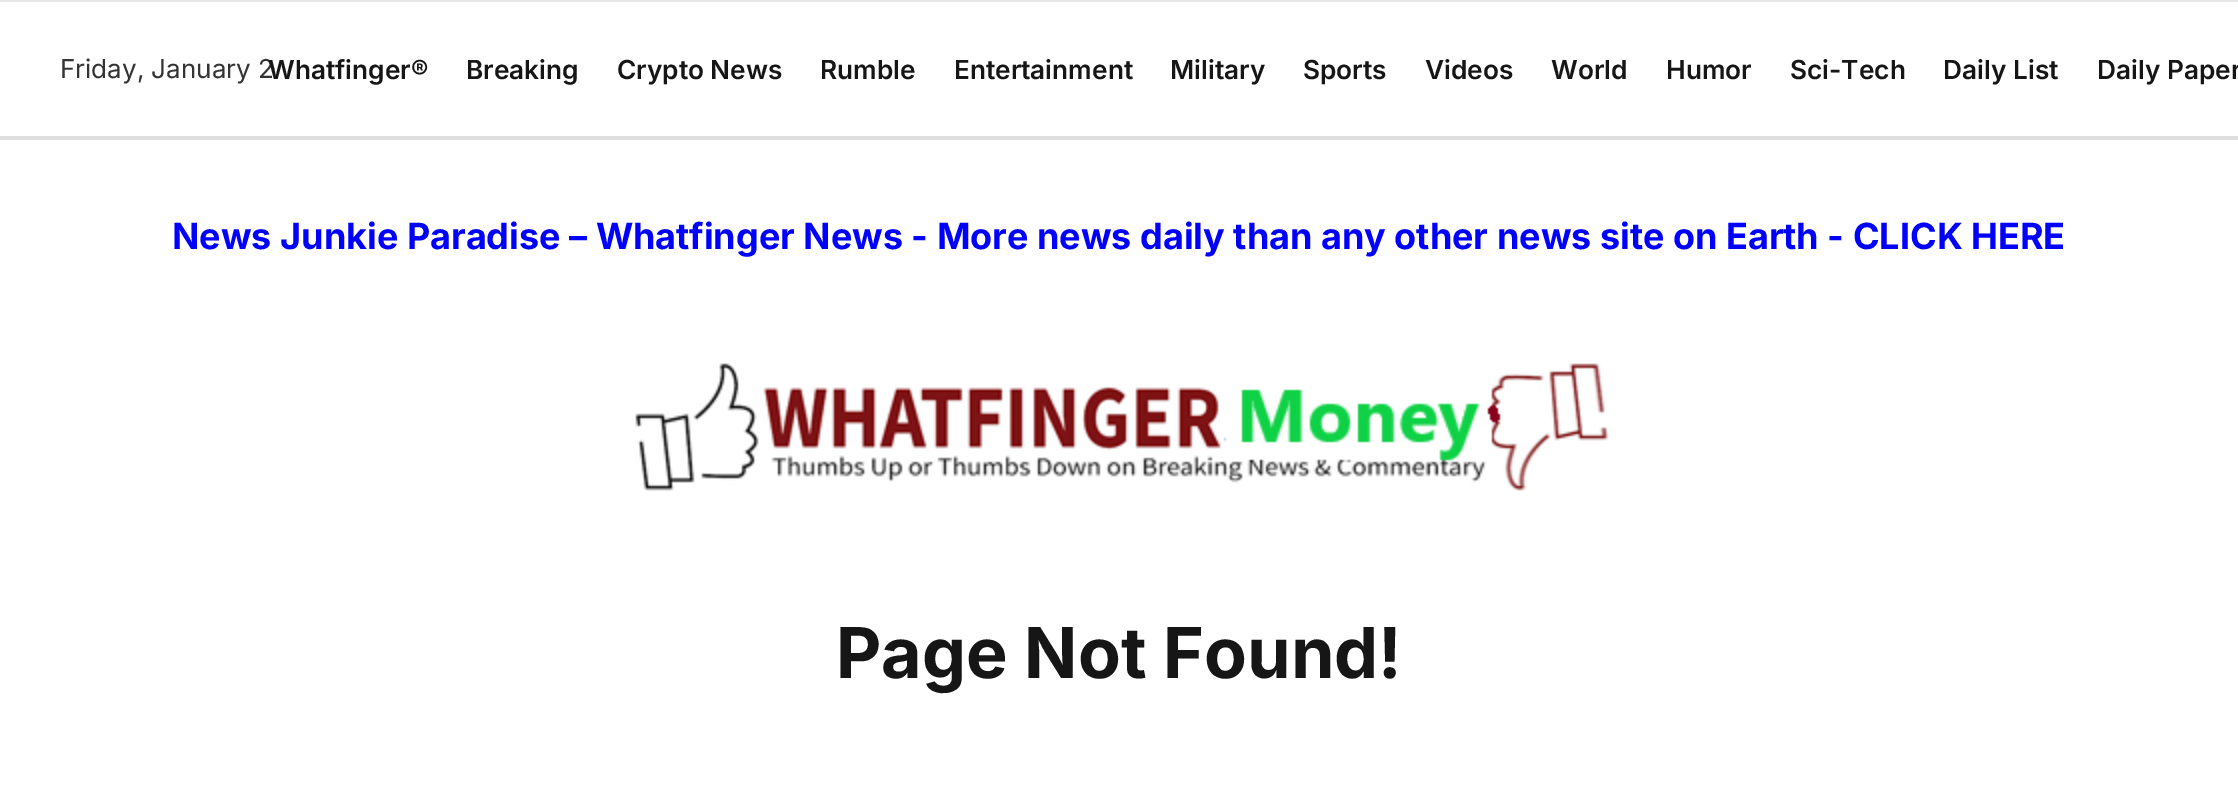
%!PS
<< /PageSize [2238 792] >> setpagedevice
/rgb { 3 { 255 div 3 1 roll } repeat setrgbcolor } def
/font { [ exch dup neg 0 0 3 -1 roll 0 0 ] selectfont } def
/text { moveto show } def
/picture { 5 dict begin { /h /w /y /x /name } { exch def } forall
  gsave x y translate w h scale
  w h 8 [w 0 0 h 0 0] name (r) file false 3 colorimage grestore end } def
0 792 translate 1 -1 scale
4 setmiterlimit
255 255 255 rgb
0 0 2238 792 rectfill
232 232 232 rgb
0 0 2238 2 rectfill
222 222 222 rgb
0 136 2238 4 rectfill
(img_01.rgb) 635 363 974 128 picture
/Inter-Regular 26 font
51 51 51 rgb
(Friday, January 2) 60 78 text
/Inter-SemiBold 26.25 font
22 22 22 rgb
(Whatfinger®) 268 79 text
(Breaking) 466 79 text
(Crypto News) 617 79 text
(Rumble) 820 79 text
(Entertainment) 954 79 text
(Military) 1170 79 text
(Sports) 1303 79 text
(Videos) 1425 79 text
(World) 1551 79 text
(Humor) 1666 79 text
(Sci-Tech) 1790 79 text
(Daily List) 1943 79 text
(Daily Paper) 2097 79 text
/Inter-Bold 36 font
0 0 255 rgb
(News Junkie Paradise – Whatfinger News - More news daily than any other news site on Earth - CLICK HERE) 172 249 text
/Inter-Bold 70 font
22 22 22 rgb
(Page Not Found!) 836 678 text
showpage
